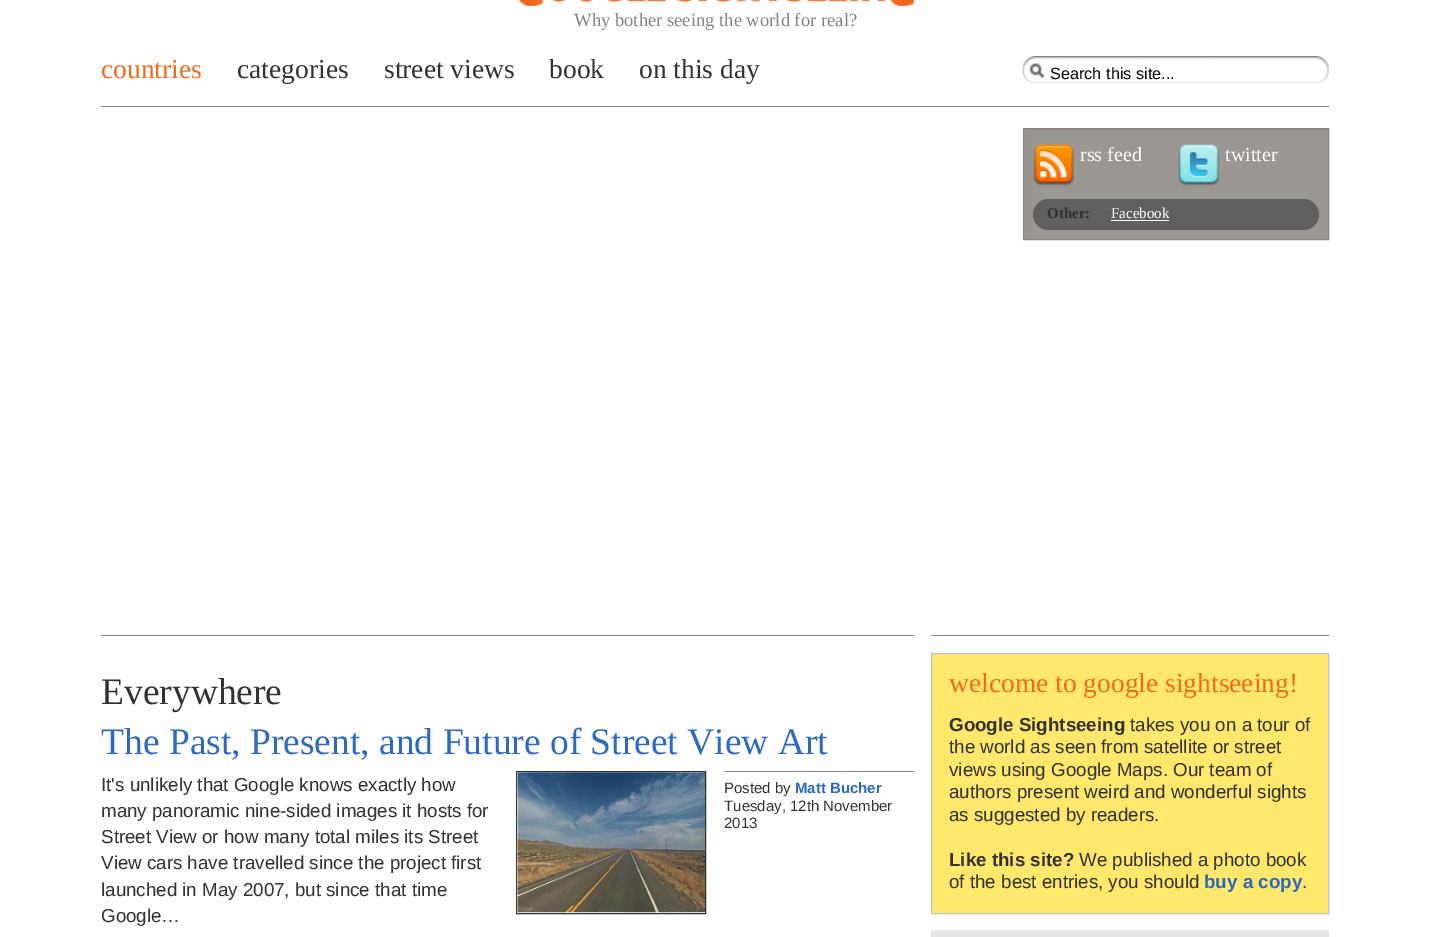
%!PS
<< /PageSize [1429 937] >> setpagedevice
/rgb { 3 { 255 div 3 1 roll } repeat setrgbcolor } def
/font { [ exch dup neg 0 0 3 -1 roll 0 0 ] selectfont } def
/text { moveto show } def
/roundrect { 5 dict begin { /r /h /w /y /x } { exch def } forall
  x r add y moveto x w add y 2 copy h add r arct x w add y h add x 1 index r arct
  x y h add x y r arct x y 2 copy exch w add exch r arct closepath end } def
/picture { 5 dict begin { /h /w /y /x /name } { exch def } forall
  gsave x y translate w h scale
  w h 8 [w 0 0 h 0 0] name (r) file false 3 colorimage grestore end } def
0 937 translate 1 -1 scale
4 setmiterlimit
255 255 255 rgb
0 0 1429 937 rectfill
(img_01.rgb) 518 0 396 6 picture
(img_02.rgb) 1022 56 307 28 picture
136 132 127 rgb
101 106 1228 1 rectfill
154 150 146 rgb
1023.5 128.5 moveto 305 0 rlineto 0 111 rlineto -305 0 rlineto closepath gsave fill grestore
136 132 127 rgb
stroke
(img_03.rgb) 1033 144 41 42 picture
(img_04.rgb) 1178 144 41 42 picture
98 96 94 rgb
1033 199 286 31 15.5 roundrect fill
255 255 255 rgb
1111 220 58 1 rectfill
136 132 127 rgb
101 635 813 1 rectfill
50 50 50 rgb
516.5 771.5 189 142 rectstroke
(img_05.rgb) 517 772 188 141 picture
136 132 127 rgb
724 771 190 1 rectfill
931 635 398 1 rectfill
255 232 107 rgb
931.5 653.5 moveto 397 0 rlineto 0 260 rlineto -397 0 rlineto closepath gsave fill grestore
195 195 195 rgb
stroke
229 229 229 rgb
931 930 398 7 rectfill
/LiberationSerif-Regular 18.6 font
130 130 130 rgb
(Why bother seeing the world for real?) 574 26 text
/LiberationSerif-Regular 27.5 font
241 106 32 rgb
(countries) 101 78 text
50 50 50 rgb
(categories) 237 78 text
(street views) 384 78 text
(book) 549 78 text
(on this day) 639 78 text
/LiberationSans-Regular 16.25 font
0 0 0 rgb
(Search this site...) 1050 79 text
/LiberationSerif-Regular 20 font
255 255 255 rgb
(rss feed) 1080 161 text
(twitter) 1225 161 text
/LiberationSerif-Bold 15 font
50 50 50 rgb
(Other:) 1047 218 text
/LiberationSerif-Regular 15 font
255 255 255 rgb
(Facebook) 1111 218 text
/LiberationSerif-Regular 37.5 font
50 50 50 rgb
(Everywhere) 101 704 text
44 105 191 rgb
(The Past, Present, and Future of Street View Art) 101 754 text
/LiberationSans-Regular 18.75 font
50 50 50 rgb
(It's unlikely that Google knows exactly how) 101 791 text
(many panoramic nine-sided images it hosts for) 101 817 text
(Street View or how many total miles its Street) 101 843 text
(View cars have travelled since the project first) 101 869 text
(launched in May 2007, but since that time) 101 896 text
(Google…) 101 922 text
/LiberationSans-Regular 15 font
(Posted by) 724 793 text
/LiberationSans-Bold 15 font
44 105 191 rgb
(Matt Bucher) 795 793 text
/LiberationSans-Regular 15 font
50 50 50 rgb
(Tuesday, 12th November) 724 811 text
(2013) 724 828 text
/LiberationSerif-Regular 27.5 font
241 106 32 rgb
(welcome to google sightseeing!) 949 692 text
/LiberationSans-Bold 18.75 font
50 50 50 rgb
(Google Sightseeing) 949 731 text
/LiberationSans-Regular 18.75 font
(takes you on a tour of) 1130 731 text
(the world as seen from satellite or street) 949 753 text
(views using Google Maps. Our team of) 949 776 text
(authors present weird and wonderful sights) 949 798 text
(as suggested by readers.) 949 821 text
/LiberationSans-Bold 18.75 font
(Like this site?) 949 866 text
/LiberationSans-Regular 18.75 font
(We published a photo book) 1079 866 text
(of the best entries, you should) 949 888 text
/LiberationSans-Bold 18.75 font
44 105 191 rgb
(buy a copy) 1204 888 text
/LiberationSans-Regular 18.75 font
50 50 50 rgb
(.) 1302 888 text
showpage
